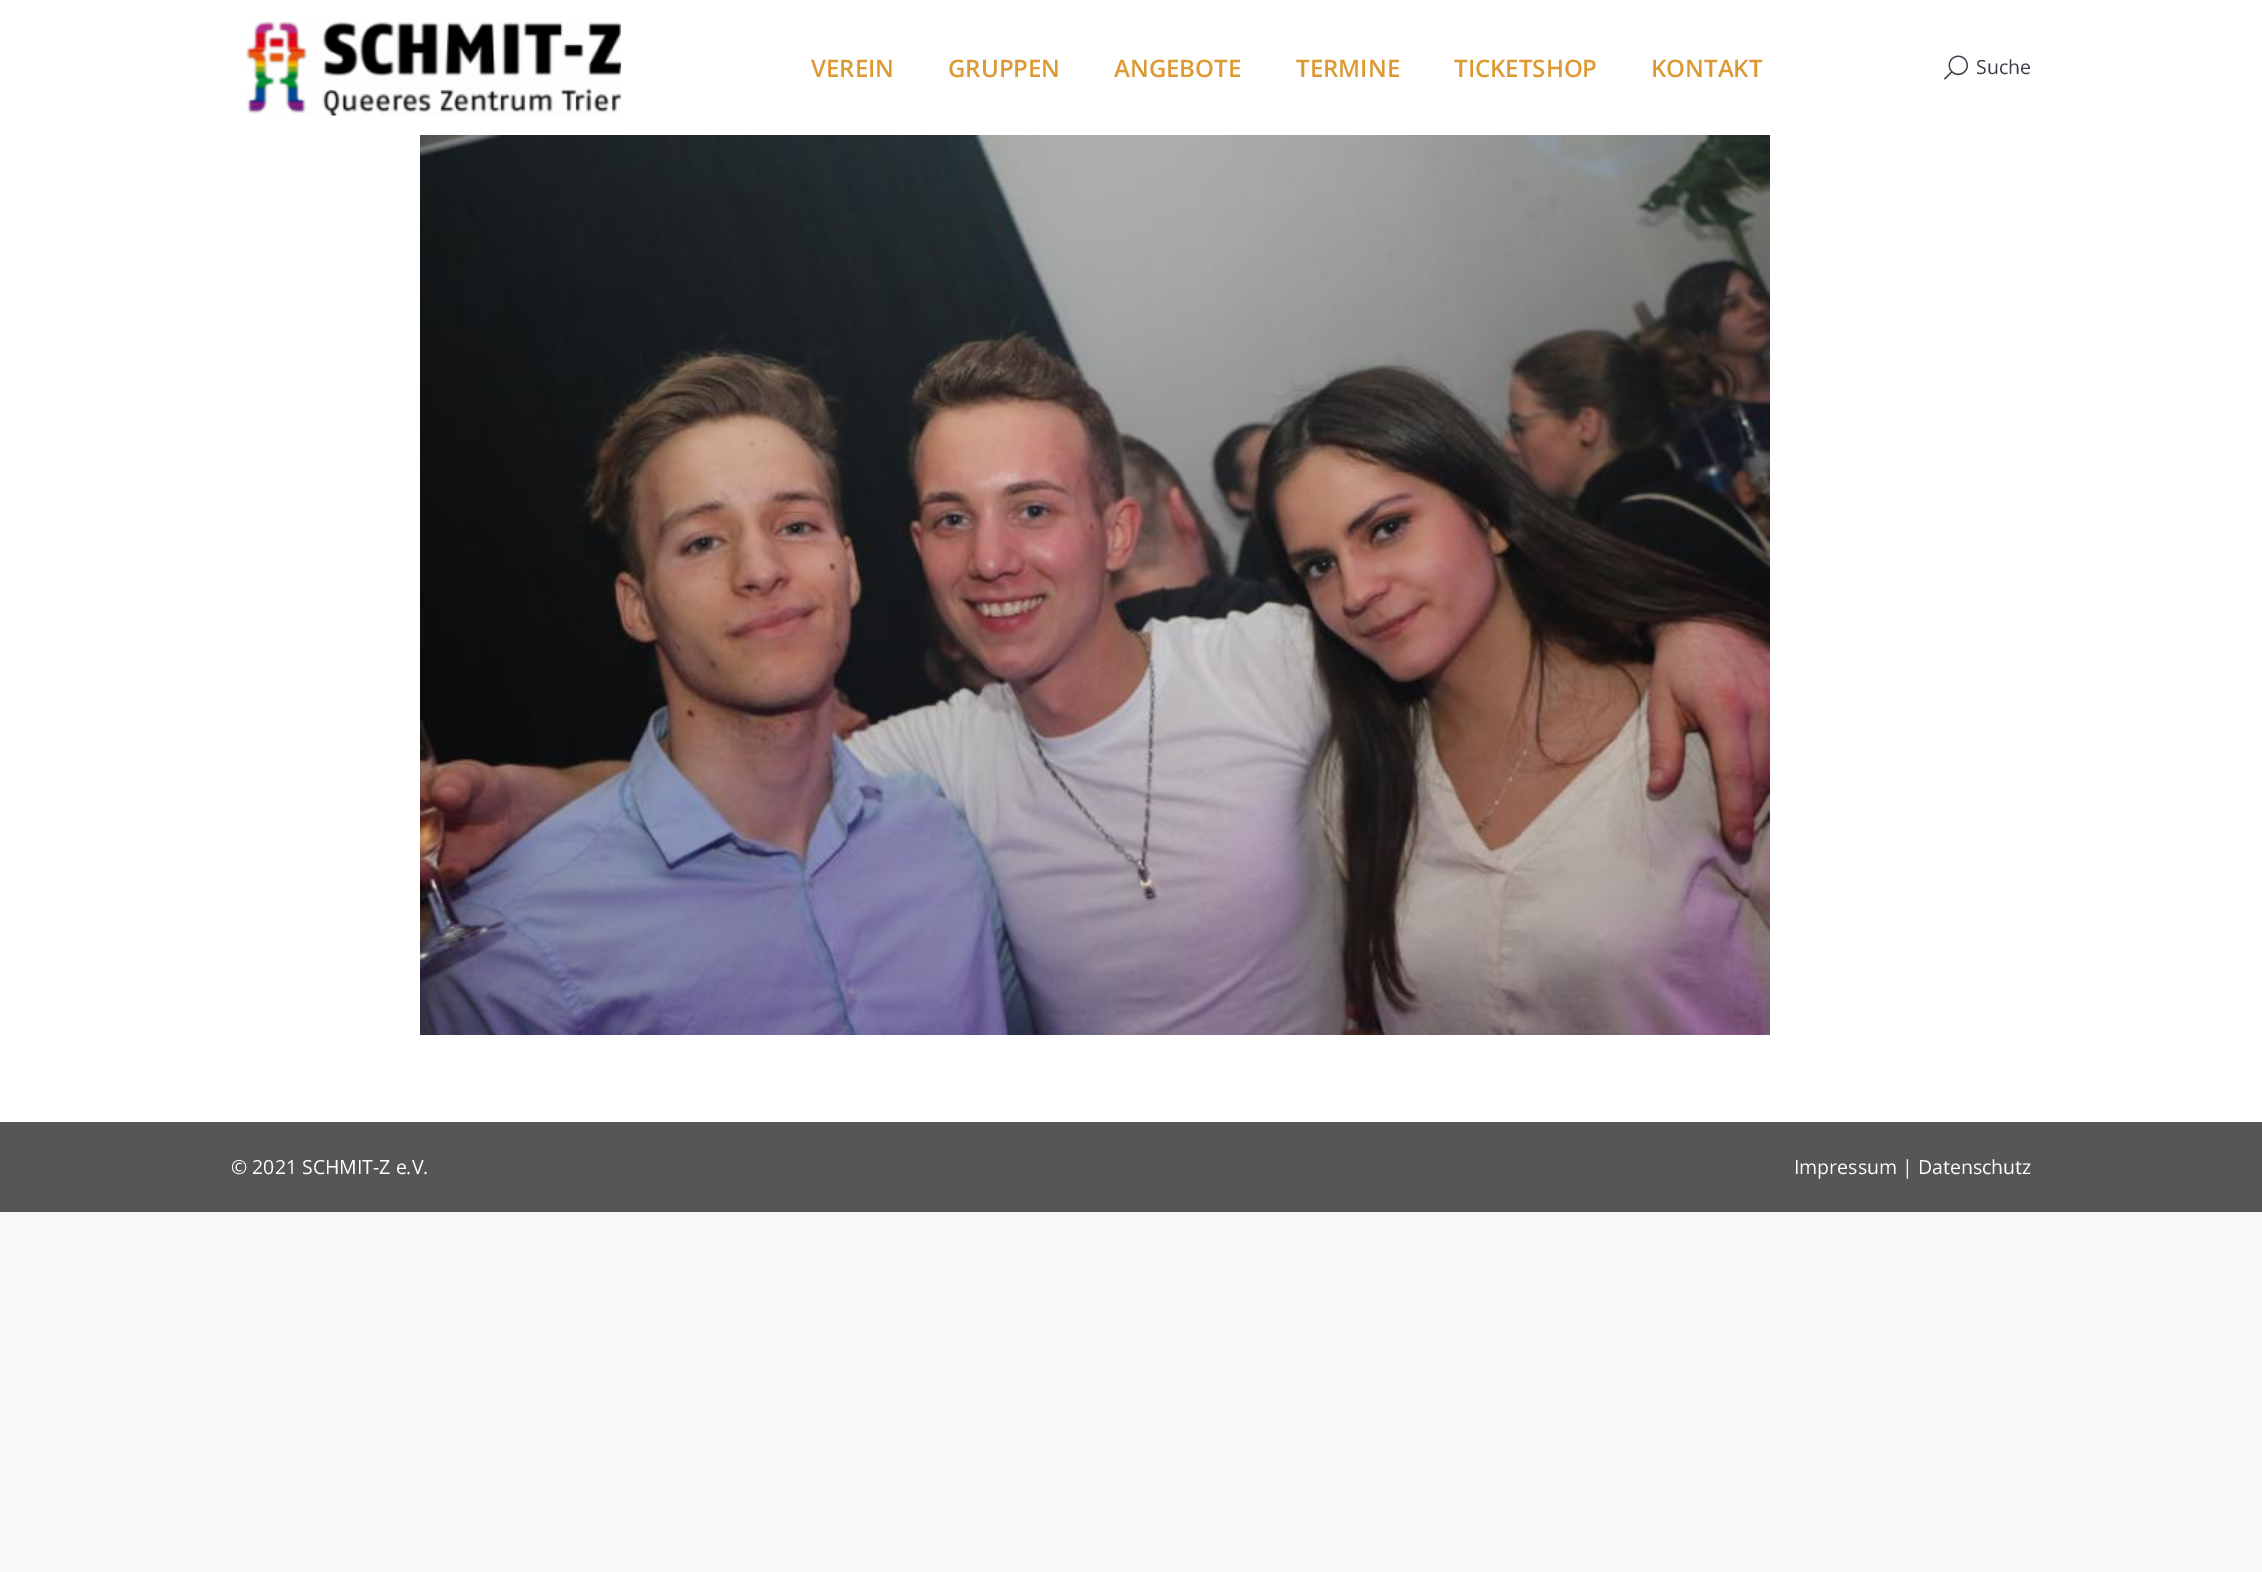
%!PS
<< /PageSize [2262 1572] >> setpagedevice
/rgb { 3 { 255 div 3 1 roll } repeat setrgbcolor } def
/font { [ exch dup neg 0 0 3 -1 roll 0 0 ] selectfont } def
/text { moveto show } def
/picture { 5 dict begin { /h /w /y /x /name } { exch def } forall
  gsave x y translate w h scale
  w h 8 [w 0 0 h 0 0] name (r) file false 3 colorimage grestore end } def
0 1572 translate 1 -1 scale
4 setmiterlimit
248 248 249 rgb
0 0 2262 1572 rectfill
255 255 255 rgb
0 0 2262 1122 rectfill
(img_01.rgb) 246 21 375 95 picture
(img_02.rgb) 1944 55 24 25 picture
(img_03.rgb) 420 135 1350 900 picture
86 86 86 rgb
0 1122 2262 90 rectfill
/OpenSans-SemiBold 24 font
221 153 51 rgb
(VEREIN) 811 77 text
(GRUPPEN) 948 77 text
(ANGEBOTE) 1114 77 text
(TERMINE) 1296 77 text
(TICKETSHOP) 1454 77 text
(KONTAKT) 1651 77 text
/OpenSans-Regular 19.5 font
59 63 74 rgb
(Suche) 1976 74 text
255 255 255 rgb
(© 2021 SCHMIT-Z e.V.) 231 1174 text
(Impressum | Datenschutz) 1794 1174 text
showpage
